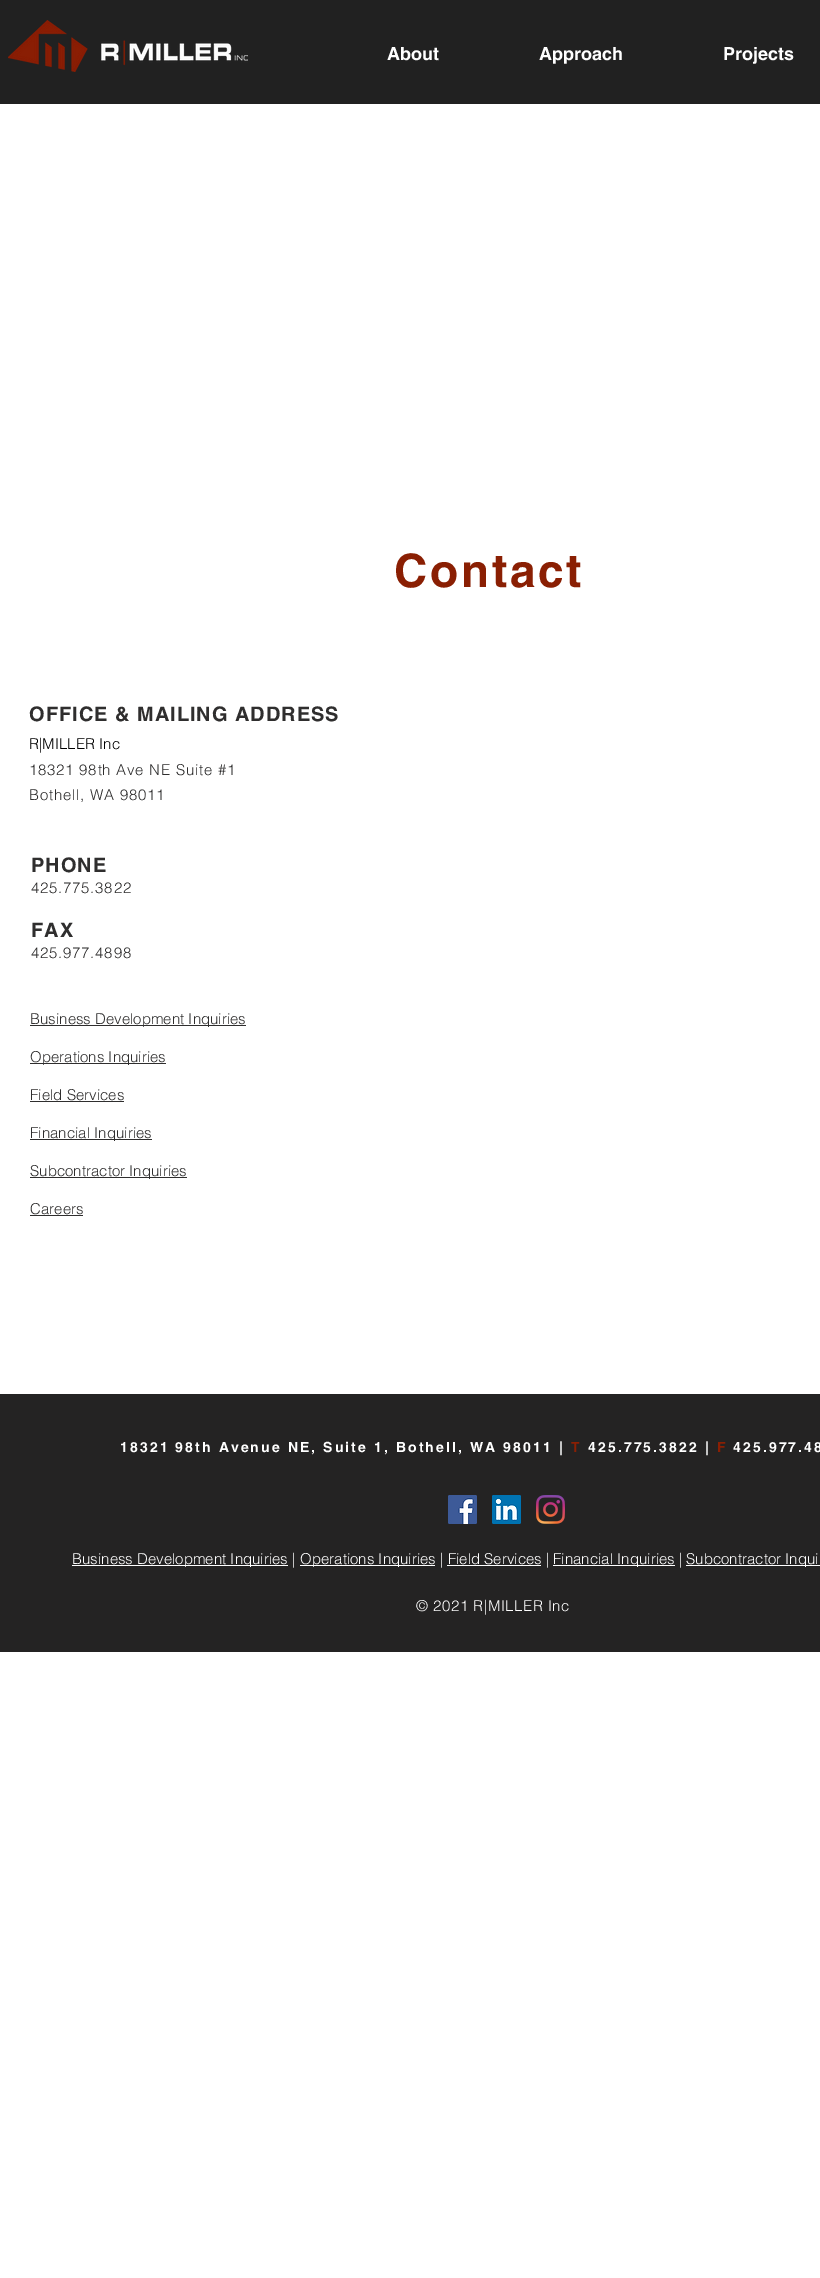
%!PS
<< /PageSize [820 2278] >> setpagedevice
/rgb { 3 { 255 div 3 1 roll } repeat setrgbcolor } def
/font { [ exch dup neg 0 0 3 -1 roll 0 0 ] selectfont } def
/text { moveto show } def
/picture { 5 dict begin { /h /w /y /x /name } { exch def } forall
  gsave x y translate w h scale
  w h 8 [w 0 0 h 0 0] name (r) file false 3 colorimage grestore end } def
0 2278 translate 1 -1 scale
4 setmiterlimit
255 255 255 rgb
0 0 820 2278 rectfill
33 33 33 rgb
0 0 820 104 rectfill
(img_01.rgb) 8 20 240 52 picture
47 46 46 rgb
30 1025 216 1 rectfill
30 1063 136 1 rectfill
30 1101 94 1 rectfill
30 1139 122 1 rectfill
30 1177 157 1 rectfill
30 1215 53 1 rectfill
36 35 35 rgb
0 1394 820 258 rectfill
(img_02.rgb) 448 1495 29 29 picture
(img_03.rgb) 492 1495 29 29 picture
(img_04.rgb) 536 1495 29 29 picture
255 255 255 rgb
72 1565 216 1 rectfill
300 1565 135 1 rectfill
447 1565 94 1 rectfill
553 1565 122 1 rectfill
686 1565 134 1 rectfill
/helvetica-Bold 18 font
(About) 387 60 text
(Approach) 539 60 text
(Projects) 723 60 text
/helvetica-Bold 46 font
138 31 3 rgb
394 587 moveto 2.75 0 (Contact) ashow
/helvetica-Bold 20 font
47 46 46 rgb
29 721 moveto 1 0 (OFFICE & MAILING ADDRESS) ashow
/helvetica-Light 15 font
0 0 0 rgb
(R|MILLER Inc) 29 749 text
47 46 46 rgb
29 775 moveto 0.75 0 (18321 98th Ave NE Suite #1) ashow
29 800 moveto 0.75 0 (Bothell, WA 98011) ashow
/helvetica-Bold 20 font
31 872 moveto 1 0 (PHONE) ashow
/helvetica-Light 15 font
31 893 moveto 0.75 0 (425.775.3822) ashow
/helvetica-Bold 20 font
31 937 moveto 1 0 (FAX) ashow
/helvetica-Light 15 font
31 958 moveto 0.75 0 (425.977.4898) ashow
(Business Development Inquiries) 30 1024 text
(Operations Inquiries) 30 1062 text
(Field Services) 30 1100 text
(Financial Inquiries) 30 1138 text
(Subcontractor Inquiries) 30 1176 text
(Careers) 30 1214 text
/helvetica-Bold 14 font
255 255 255 rgb
120 1452 moveto 2.1 0 (18321 98th Avenue NE, Suite 1, Bothell, WA 98011 |) ashow
138 31 3 rgb
571 1452 moveto 2.1 0 (T) ashow
255 255 255 rgb
588 1452 moveto 2.1 0 (425.775.3822 |) ashow
138 31 3 rgb
717 1452 moveto 2.1 0 (F) ashow
255 255 255 rgb
733 1452 moveto 2.1 0 (425.977.48) ashow
/helvetica-Light 15 font
(Business Development Inquiries |) 72 1564 text
(Operations Inquiries | Field Services |) 300 1564 text
(Financial Inquiries |) 553 1564 text
(Subcontractor Inqui) 686 1564 text
416 1611 moveto 0.5 0 (© 2021 R|MILLER Inc) ashow
showpage
